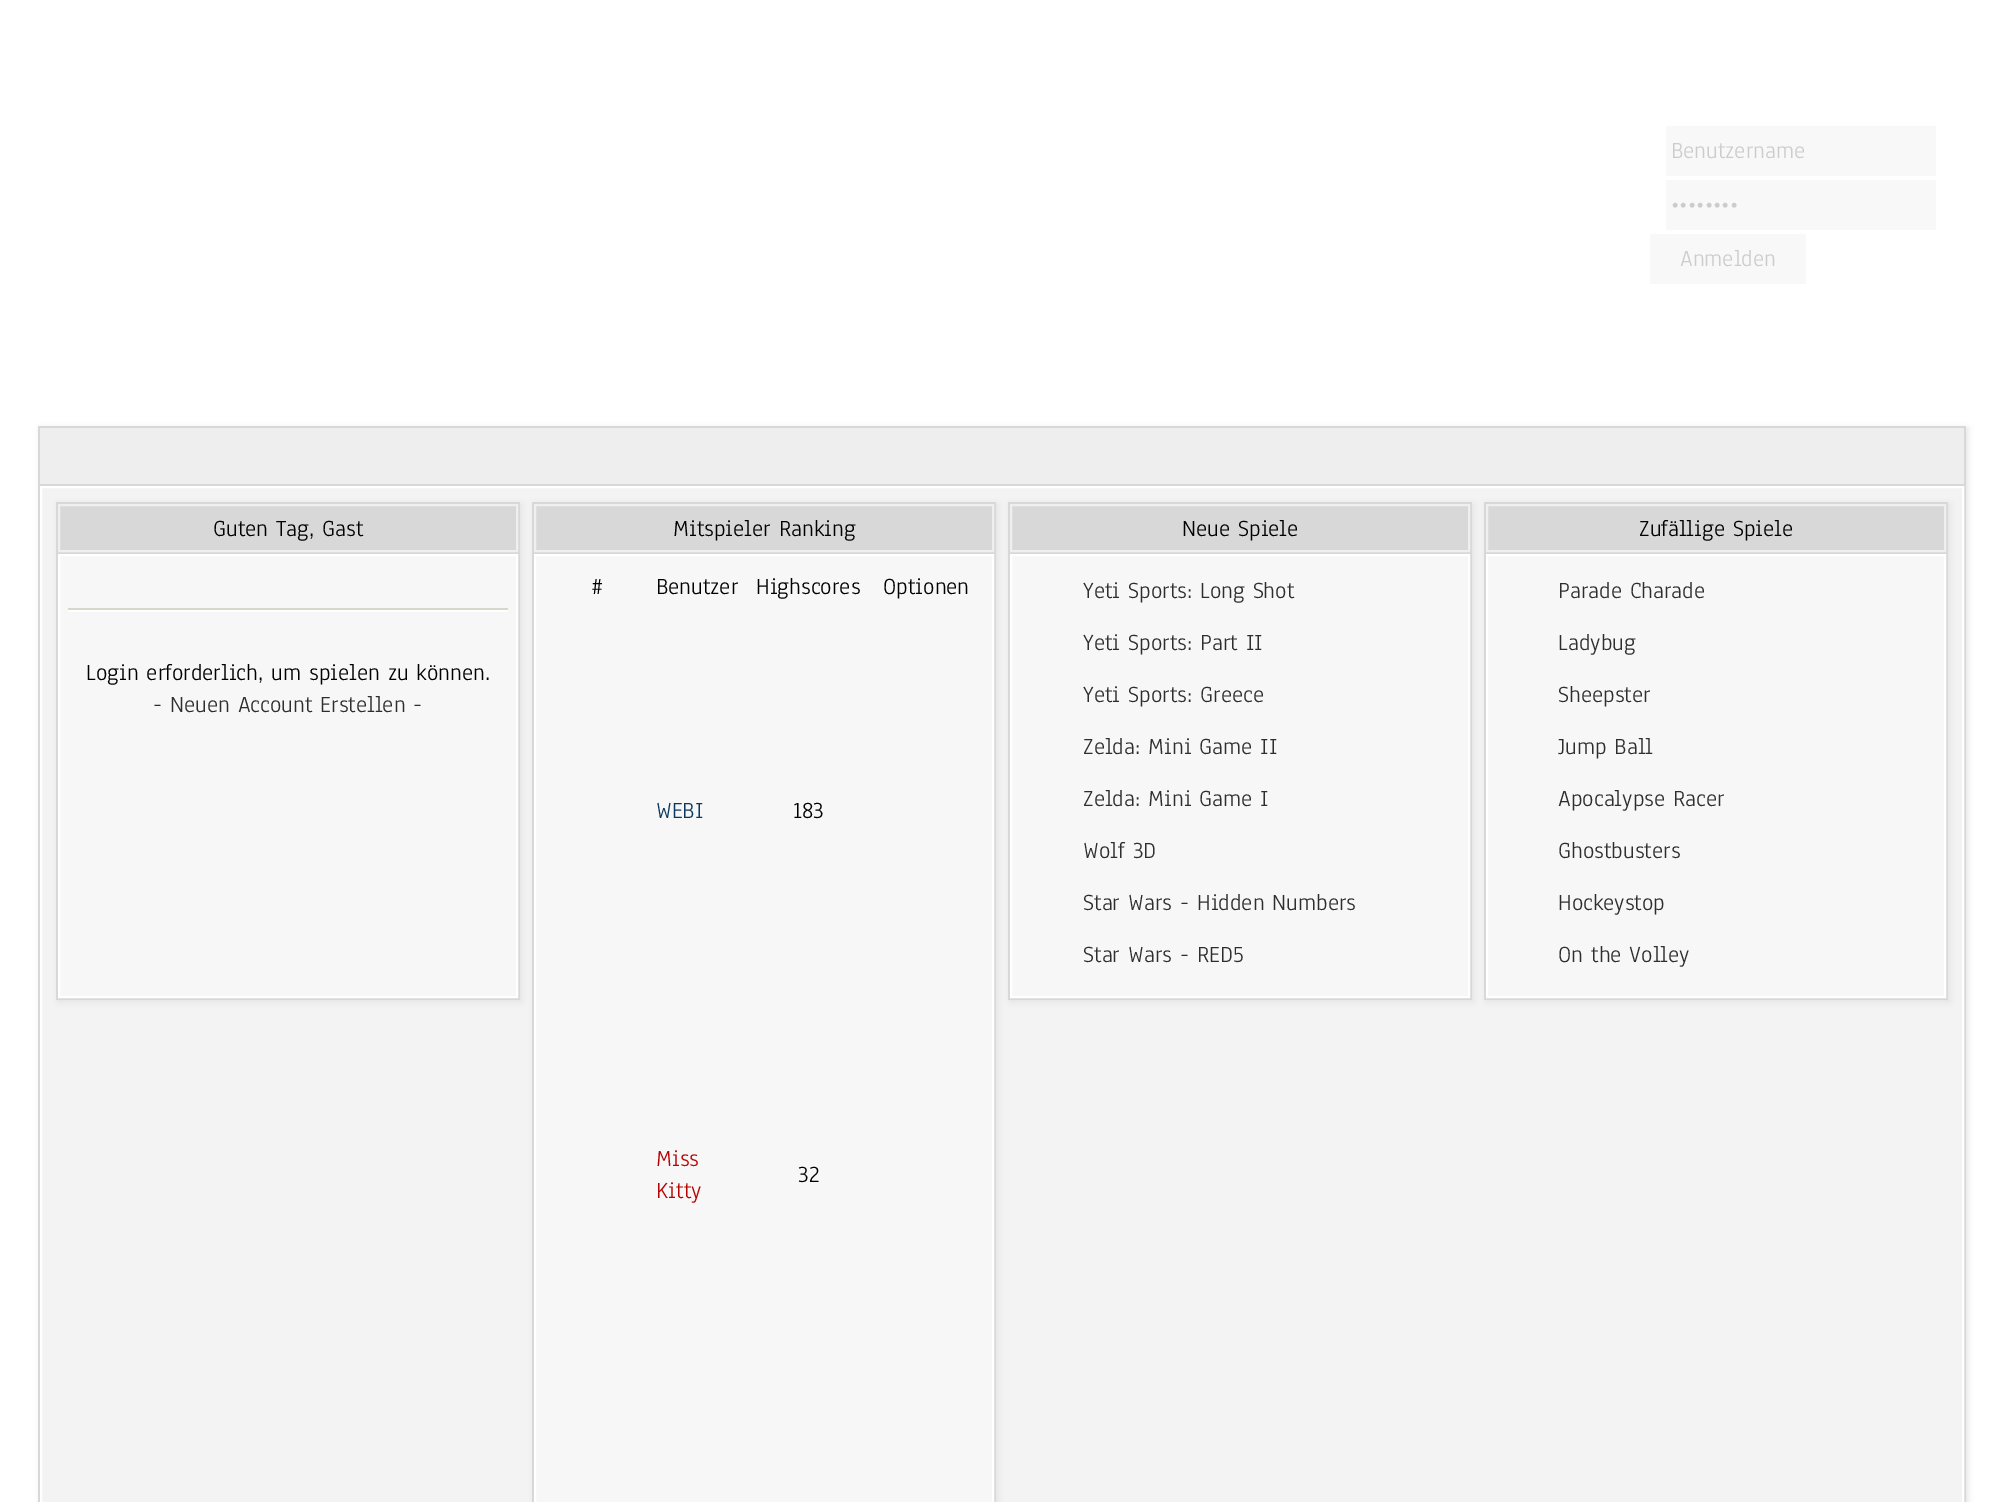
%!PS
<< /PageSize [2003 1502] /PageUsesTransparency true >> setpagedevice
/rgb { 3 { 255 div 3 1 roll } repeat setrgbcolor } def
/font { [ exch dup neg 0 0 3 -1 roll 0 0 ] selectfont } def
/text { moveto show } def
/alpha { dup .setfillconstantalpha .setstrokeconstantalpha } def
/roundrect { 5 dict begin { /r /h /w /y /x } { exch def } forall
  x r add y moveto x w add y 2 copy h add r arct x w add y h add x 1 index r arct
  x y h add x y r arct x y 2 copy exch w add exch r arct closepath end } def
/shadow { 12 dict begin { /a /b /q /h /w /y /x } { exch def } forall gsave /was 0 def
  9 -2 -9 { dup b mul 4 div /e exch def 1 sub .425 mul 2.718 exch exp 1 add a .99 .min exch div /now exch def
    1 1 now sub 1 was sub div sub alpha /was now def
    w h .min e 2 mul add 0 gt { x e sub y e sub w e 2 mul add h e 2 mul add
      q e add b .6 mul add w h .min 2 div e add .min 0 .max roundrect fill } if } for grestore end } def
0 .pushpdf14devicefilter
0 1502 translate 1 -1 scale
4 setmiterlimit
255 255 255 rgb
0 0 2003 1502 rectfill
248 248 248 rgb
1666 126 270 50 rectfill
1666 180 270 50 rectfill
1650 234 156 50 rectfill
227 227 227 rgb
40 428 1928 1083 0 3 1 shadow
216 216 216 rgb
38 426 1928 1076 rectfill
238 238 238 rgb
40 428 1924 56 rectfill
243 243 243 rgb
41 487 moveto 1922 0 rlineto 0 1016 rlineto -1922 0 rlineto closepath gsave fill grestore
255 255 255 rgb
2 setlinewidth
stroke
227 227 227 rgb
58 504 464 498 0 3 1 shadow
216 216 216 rgb
56 502 464 498 rectfill
239 239 239 rgb
59 505 458 46 rectstroke
247 247 247 rgb
59 555 moveto 458 0 rlineto 0 442 rlineto -458 0 rlineto closepath gsave fill grestore
255 255 255 rgb
stroke
215 215 203 rgb
68 608 440 2 rectfill
255 255 255 rgb
68 610 440 2 rectfill
227 227 227 rgb
534 504 464 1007 0 3 1 shadow
216 216 216 rgb
532 502 464 1000 rectfill
239 239 239 rgb
535 505 458 46 rectstroke
247 247 247 rgb
535 555 moveto 458 0 rlineto 0 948 rlineto -458 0 rlineto closepath gsave fill grestore
255 255 255 rgb
stroke
227 227 227 rgb
1010 504 464 498 0 3 1 shadow
216 216 216 rgb
1008 502 464 498 rectfill
239 239 239 rgb
1011 505 458 46 rectstroke
247 247 247 rgb
1011 555 moveto 458 0 rlineto 0 442 rlineto -458 0 rlineto closepath gsave fill grestore
255 255 255 rgb
stroke
227 227 227 rgb
1486 504 464 498 0 3 1 shadow
216 216 216 rgb
1484 502 464 498 rectfill
239 239 239 rgb
1487 505 458 46 rectstroke
247 247 247 rgb
1487 555 moveto 458 0 rlineto 0 442 rlineto -458 0 rlineto closepath gsave fill grestore
255 255 255 rgb
stroke
/Anaheim-Regular 24 font
204 204 204 rgb
(Benutzername) 1671 158 text
(••••••••) 1671 212 text
(Anmelden) 1680 266 text
0 0 0 rgb
(Guten Tag, Gast) 213 536 text
(Login erforderlich, um spielen zu können.) 86 680 text
46 46 46 rgb
(- Neuen Account Erstellen -) 153 712 text
0 0 0 rgb
(Mitspieler Ranking) 673 536 text
(#) 591 594 text
(Benutzer) 656 594 text
(Highscores) 756 594 text
(Optionen) 883 594 text
11 56 97 rgb
(WEBI) 656 818 text
0 0 0 rgb
(183) 793 818 text
180 4 4 rgb
(Miss) 656 1166 text
(Kitty) 656 1198 text
0 0 0 rgb
(32) 798 1182 text
(Neue Spiele) 1182 536 text
46 46 46 rgb
(Yeti Sports: Long Shot) 1083 598 text
(Yeti Sports: Part II) 1083 650 text
(Yeti Sports: Greece) 1083 702 text
(Zelda: Mini Game II) 1083 754 text
(Zelda: Mini Game I) 1083 806 text
(Wolf 3D) 1083 858 text
(Star Wars - Hidden Numbers) 1083 910 text
(Star Wars - RED5) 1083 962 text
0 0 0 rgb
(Zufällige Spiele) 1639 536 text
46 46 46 rgb
(Parade Charade) 1558 598 text
(Ladybug) 1558 650 text
(Sheepster) 1558 702 text
(Jump Ball) 1558 754 text
(Apocalypse Racer) 1558 806 text
(Ghostbusters) 1558 858 text
(Hockeystop) 1558 910 text
(On the Volley) 1558 962 text
.poppdf14devicefilter showpage
